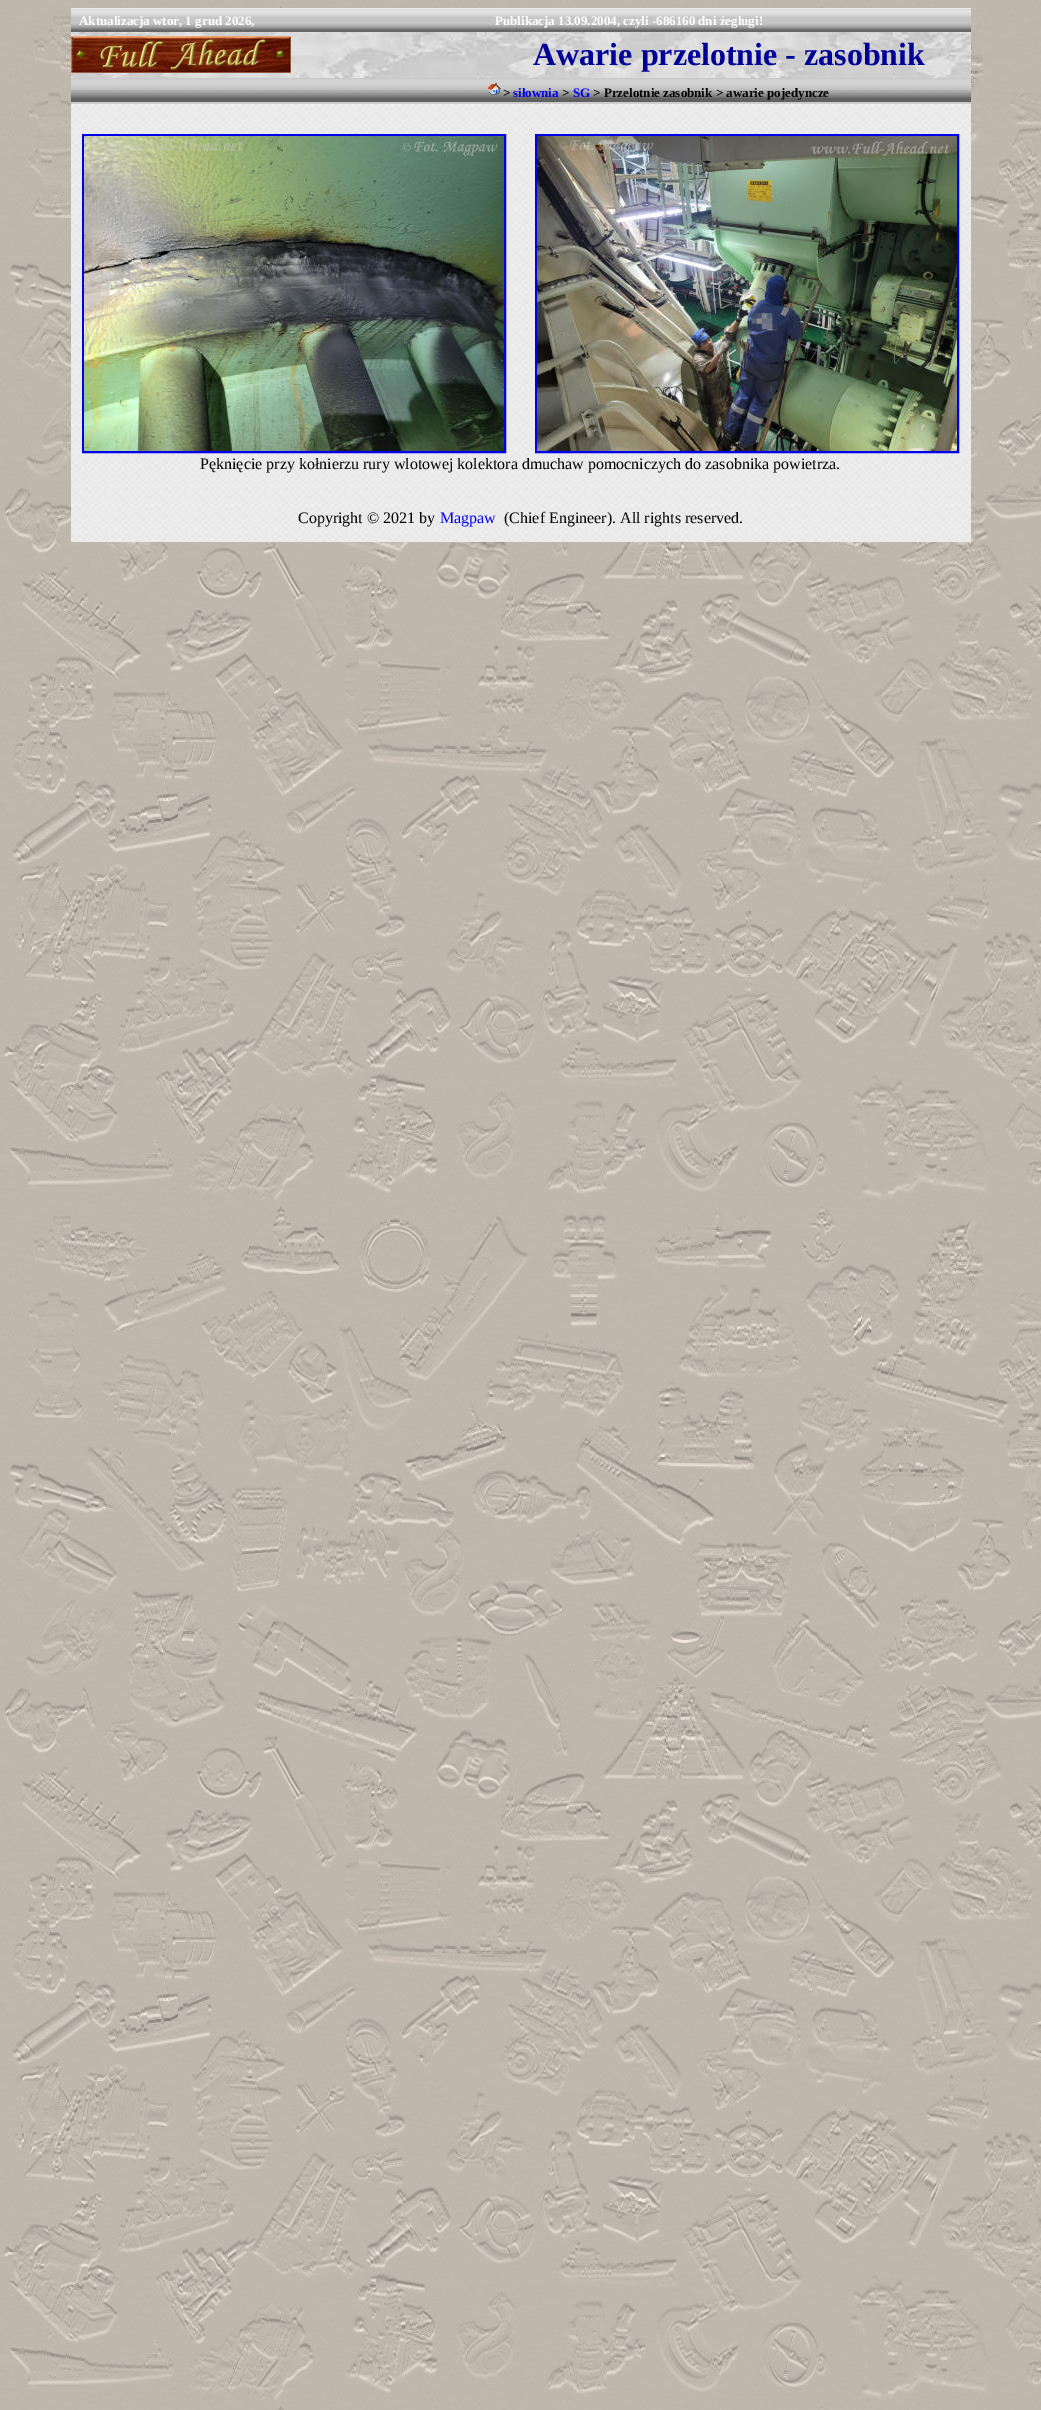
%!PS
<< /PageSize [1041 2410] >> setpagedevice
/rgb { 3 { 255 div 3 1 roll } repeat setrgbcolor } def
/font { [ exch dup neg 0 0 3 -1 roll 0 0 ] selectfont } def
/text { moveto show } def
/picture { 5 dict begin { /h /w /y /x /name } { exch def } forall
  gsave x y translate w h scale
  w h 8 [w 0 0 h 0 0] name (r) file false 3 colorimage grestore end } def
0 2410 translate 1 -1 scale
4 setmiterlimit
255 255 255 rgb
0 0 1041 2410 rectfill
(img_01.rgb) 0 0 1041 2410 picture
(img_02.rgb) 71 8 416 24 picture
(img_03.rgb) 487 8 484 24 picture
(img_04.rgb) 71 32 416 46 picture
(img_05.rgb) 71 36 220 37 picture
(img_06.rgb) 487 32 484 46 picture
(img_07.rgb) 71 78 416 26 picture
(img_08.rgb) 487 78 484 26 picture
(img_09.rgb) 488 83 13 12 picture
(img_10.rgb) 71 104 900 438 picture
0 0 238 rgb
2 setlinewidth
83 135 422 317 rectstroke
(img_11.rgb) 84 136 420 315 picture
536 135 422 317 rectstroke
(img_12.rgb) 537 136 420 315 picture
/LiberationSerif-Bold 13 font
255 255 255 rgb
(Aktualizacja wtor, 1 grud 2026,) 79 25 text
(Publikacja 13.09.2004, czyli -686160 dni żeglugi!) 495 25 text
/LiberationSerif-Bold 32 font
0 0 153 rgb
(Awarie przelotnie - zasobnik) 533 65 text
/LiberationSerif-Bold 13 font
0 0 0 rgb
(>) 503 97 text
0 0 238 rgb
(siłownia) 513 97 text
0 0 0 rgb
(>) 562 97 text
0 0 238 rgb
(SG) 573 97 text
0 0 0 rgb
(> Przelotnie zasobnik > awarie pojedyncze) 593 97 text
/LiberationSerif-Regular 16 font
(Pęknięcie przy kołnierzu rury wlotowej kolektora dmuchaw pomocniczych do zasobnika powietrza.) 200 469 text
(Copyright © 2021 by) 298 523 text
0 0 238 rgb
(Magpaw) 440 523 text
0 0 0 rgb
(\(Chief Engineer\). All rights reserved.) 504 523 text
showpage
